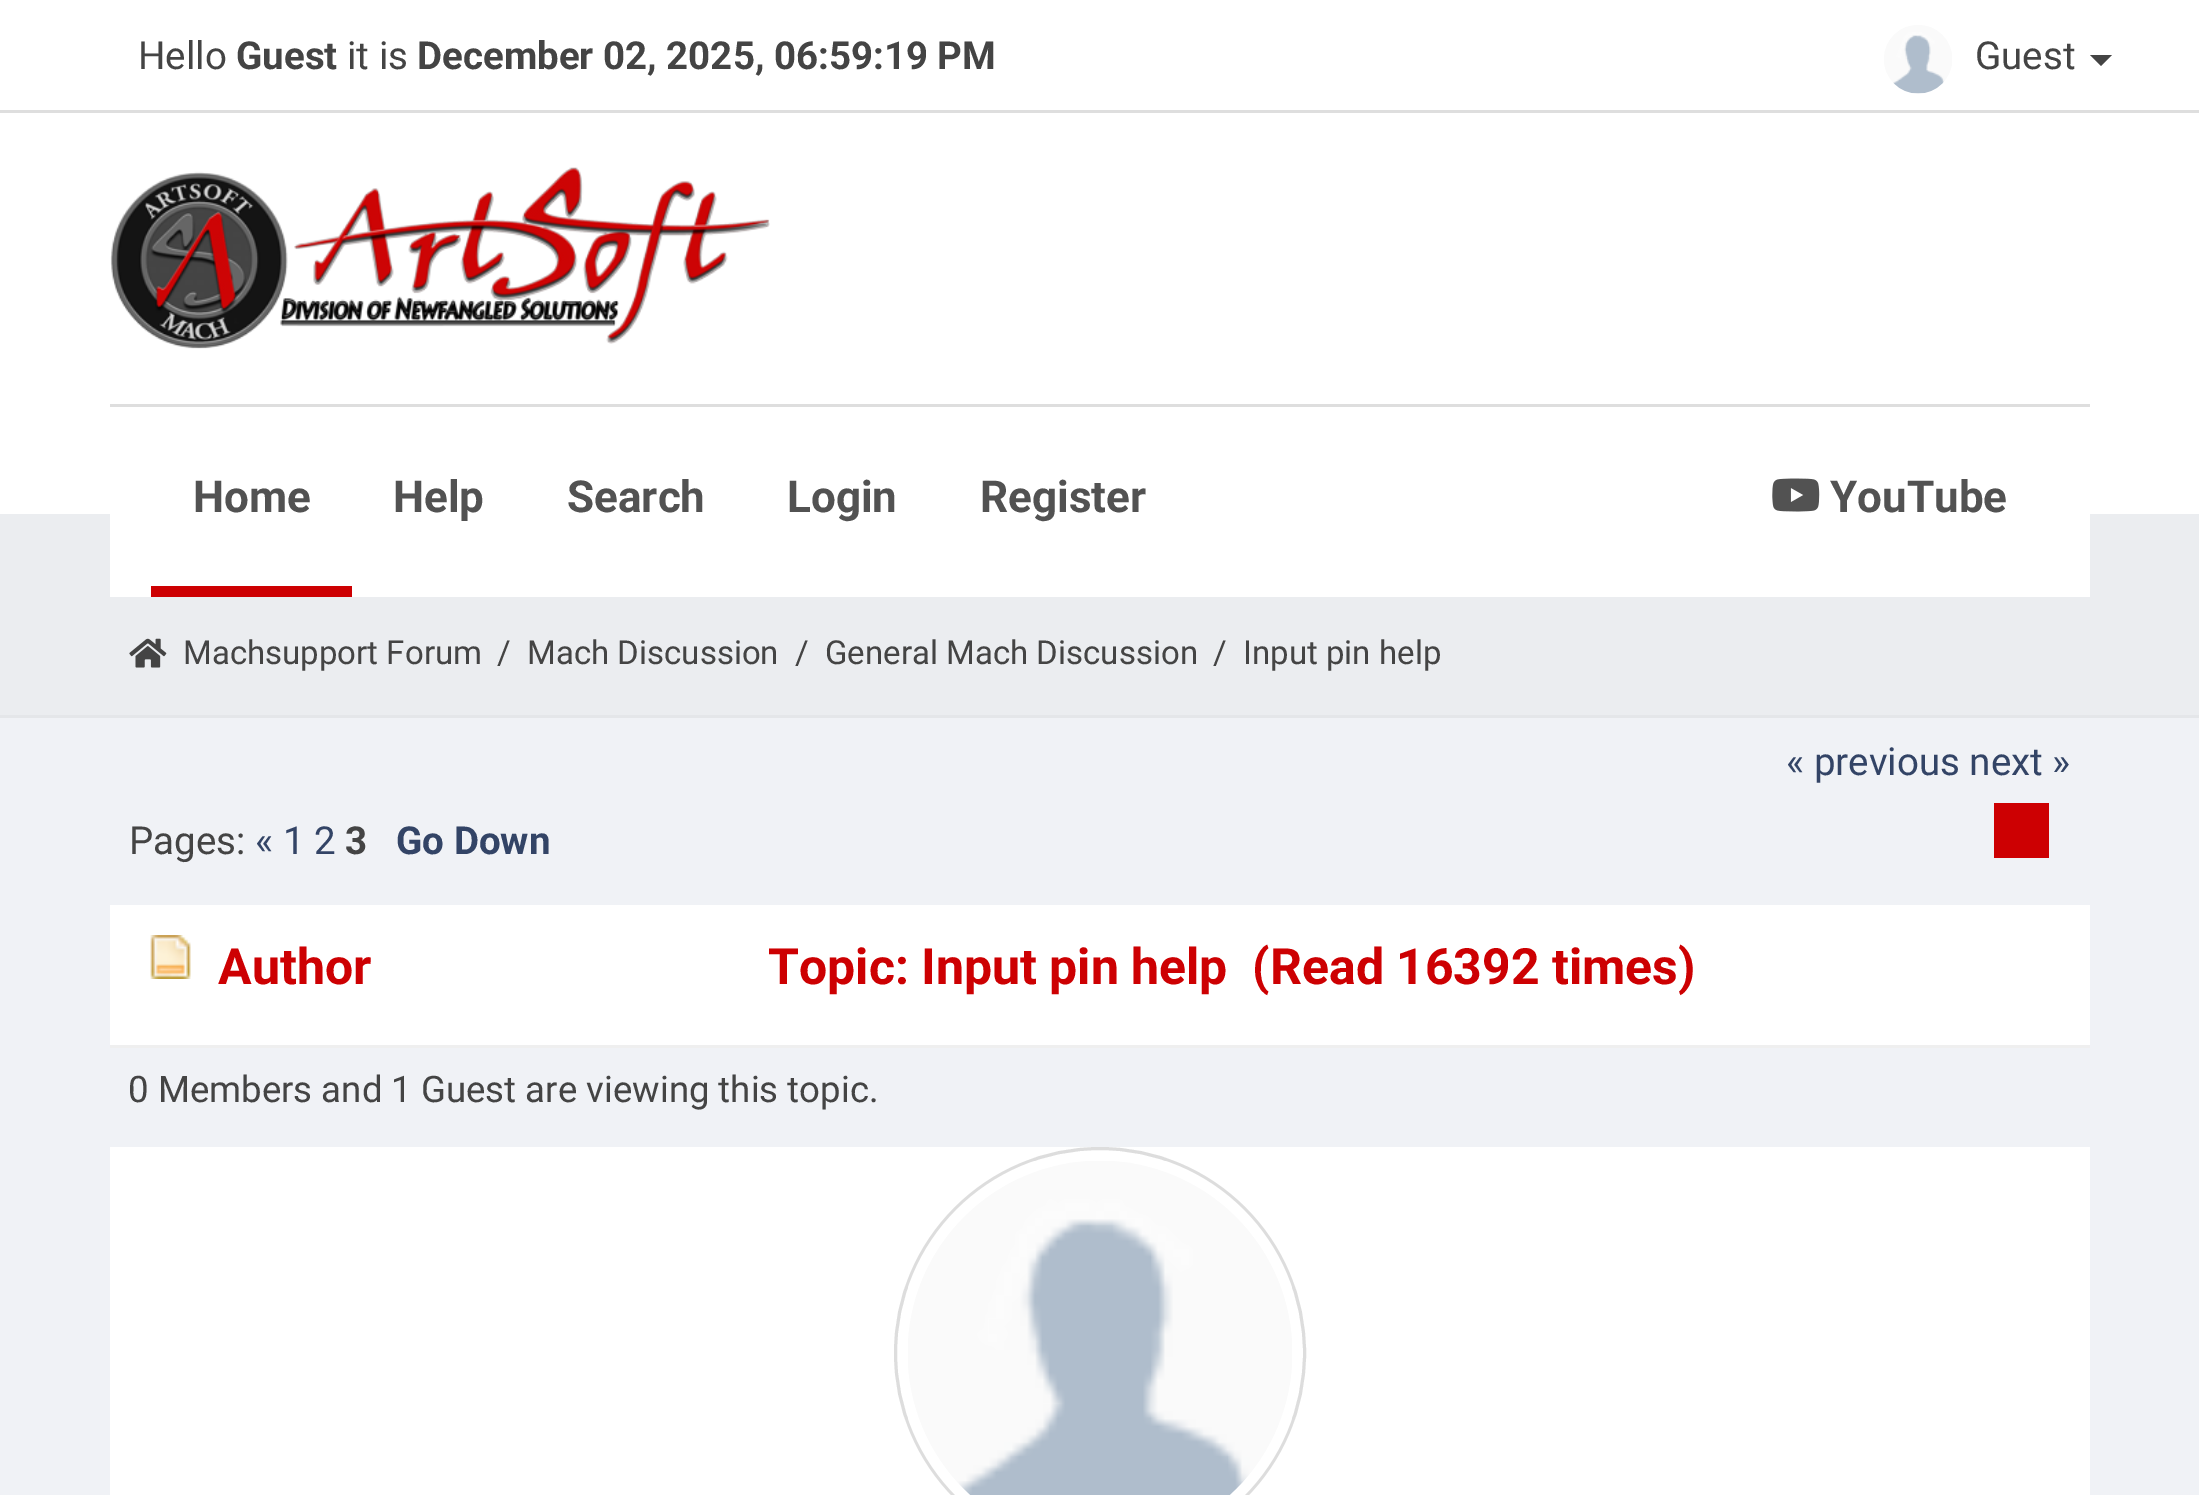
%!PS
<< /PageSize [2199 1495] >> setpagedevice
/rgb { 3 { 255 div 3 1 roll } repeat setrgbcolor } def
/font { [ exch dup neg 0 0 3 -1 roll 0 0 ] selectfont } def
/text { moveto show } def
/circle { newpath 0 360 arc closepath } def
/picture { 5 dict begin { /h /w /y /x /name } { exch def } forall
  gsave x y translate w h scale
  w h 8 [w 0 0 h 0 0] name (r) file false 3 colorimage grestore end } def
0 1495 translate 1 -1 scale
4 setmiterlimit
240 242 246 rgb
0 0 2199 1495 rectfill
255 255 255 rgb
0 0 2199 110 rectfill
222 222 222 rgb
0 110 2199 3 rectfill
(img_01.rgb) 1884 25 68 69 picture
68 68 68 rgb
2090 55 moveto 22 0 rlineto -11 11 rlineto closepath fill
255 255 255 rgb
0 113 2199 401 rectfill
(img_02.rgb) 110 167 660 182 picture
235 237 240 rgb
0 514 2199 201 rectfill
255 255 255 rgb
110 514 1980 83 rectfill
222 222 222 rgb
110 404 1980 3 rectfill
205 0 2 rgb
151 586 201 11 rectfill
(img_03.rgb) 1772 478 48 34 picture
228 230 233 rgb
0 715 2199 3 rectfill
(img_04.rgb) 129 638 38 30 picture
205 0 2 rgb
1994 803 55 55 rectfill
255 255 255 rgb
110 905 1980 140 rectfill
239 239 239 rgb
110 1045 1980 3 rectfill
(img_05.rgb) 150 935 41 44 picture
255 255 255 rgb
110 1147 1980 348 rectfill
221 221 221 rgb
3 setlinewidth
1100 1353 204.5 circle stroke
(img_06.rgb) 908 1161 384 334 picture
/Roboto-Regular 38.5 font
68 68 68 rgb
(Hello) 138 69 text
/Roboto-Bold 38.5 font
(Guest) 236 69 text
/Roboto-Regular 38.5 font
(it is) 347 69 text
/Roboto-Bold 38.5 font
(December 02, 2025, 06:59:19 PM) 417 69 text
/Roboto-Regular 38.5 font
(Guest) 1975 69 text
/Roboto-Bold 44 font
82 82 82 rgb
(Home) 193 512 text
(Help) 393 512 text
(Search) 567 512 text
(Login) 787 512 text
(Register) 980 512 text
(YouTube) 1830 512 text
/Roboto-Regular 33 font
68 68 68 rgb
(Machsupport Forum) 183 664 text
(/) 497 664 text
(Mach Discussion) 527 664 text
(/) 795 664 text
(General Mach Discussion) 825 664 text
(/) 1213 664 text
(Input pin help) 1243 664 text
/Roboto-Regular 38.5 font
51 68 102 rgb
(« previous next ») 1786 775 text
68 68 68 rgb
(Pages:) 129 854 text
51 68 102 rgb
(« 1 2) 255 854 text
/Roboto-Bold 38.5 font
68 68 68 rgb
(3) 345 854 text
51 68 102 rgb
(Go Down) 396 854 text
/Roboto-Bold 50 font
205 0 2 rgb
(Author) 218 984 text
(Topic: Input pin help  \(Read 16392 times\)) 768 984 text
/Roboto-Regular 36.6 font
68 68 68 rgb
(0 Members and 1 Guest are viewing this topic.) 128 1102 text
showpage
